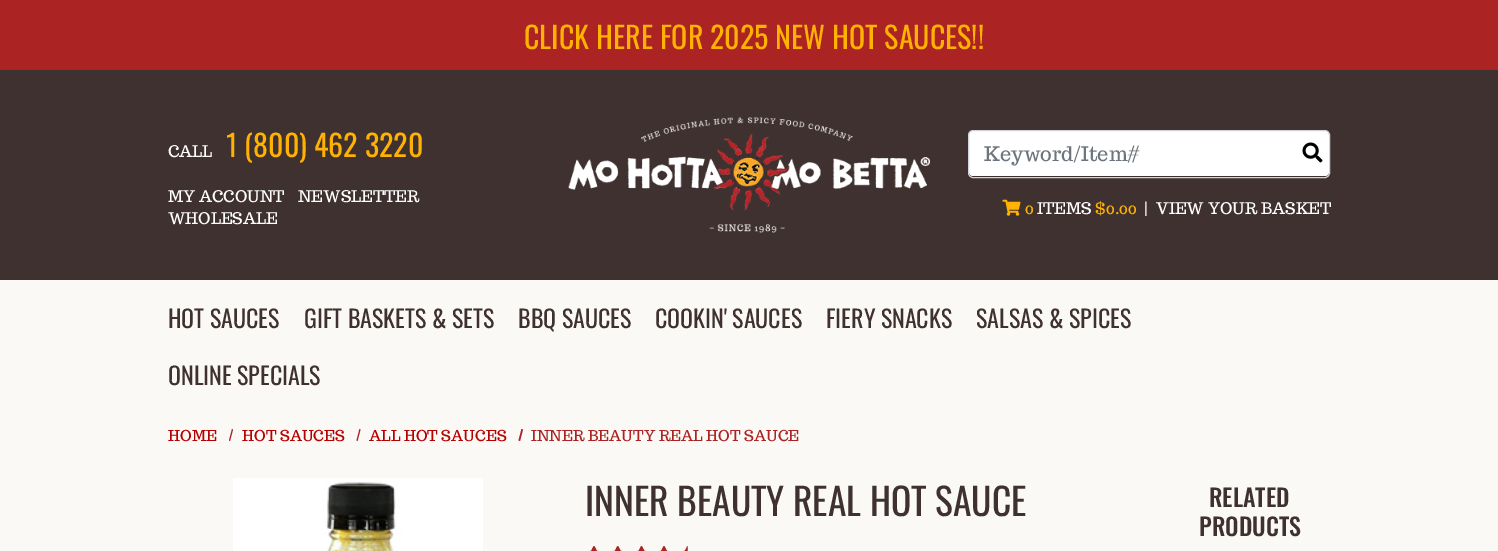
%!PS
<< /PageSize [1498 551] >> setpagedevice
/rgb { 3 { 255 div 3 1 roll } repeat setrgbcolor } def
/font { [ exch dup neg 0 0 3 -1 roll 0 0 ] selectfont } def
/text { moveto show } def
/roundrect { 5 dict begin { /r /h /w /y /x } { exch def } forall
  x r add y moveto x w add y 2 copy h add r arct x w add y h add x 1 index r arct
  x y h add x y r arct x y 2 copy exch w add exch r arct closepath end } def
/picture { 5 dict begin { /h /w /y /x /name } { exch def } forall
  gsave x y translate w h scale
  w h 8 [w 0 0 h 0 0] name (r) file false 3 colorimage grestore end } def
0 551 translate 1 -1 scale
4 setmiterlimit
250 249 246 rgb
0 0 1498 551 rectfill
171 35 35 rgb
0 0 1498 70 rectfill
63 49 48 rgb
0 70 1498 210 rectfill
(img_01.rgb) 568 117 362 116 picture
255 255 255 rgb
969 131 360 45 4 roundrect fill
206 212 218 rgb
968.5 130.5 361 47 4.5 roundrect stroke
(img_02.rgb) 1302 142 21 21 picture
(img_03.rgb) 1002 199 19 17 picture
171 35 35 rgb
232 429 moveto 1 0.5 rlineto -3 11.5 rlineto -1 -0.5 rlineto closepath fill
359.5 429 moveto 1 0.5 rlineto -3 11.5 rlineto -1 -0.5 rlineto closepath fill
521.5 429 moveto 1.5 0.5 rlineto -3 11.5 rlineto -1.5 -0.5 rlineto closepath fill
(img_04.rgb) 233 478 250 73 picture
(img_05.rgb) 589 546 10 5 picture
(img_06.rgb) 613 546 10 5 picture
(img_07.rgb) 637 546 9 5 picture
(img_05.rgb) 659 546 10 5 picture
(img_08.rgb) 683 546 5 5 picture
/Oswald-Regular 30 font
255 178 2 rgb
(CLICK HERE FOR 2025 NEW HOT SAUCES!!) 524 49 text
/Trocchi-Regular 16 font
255 255 255 rgb
(CALL) 168 157 text
/Oswald-Regular 30 font
255 178 2 rgb
(1 \(800\) 462 3220) 226 157 text
/Trocchi-Regular 16 font
255 255 255 rgb
(MY ACCOUNT) 168 202 text
(NEWSLETTER) 298 202 text
(WHOLESALE) 168 224 text
/Trocchi-Regular 20 font
108 117 125 rgb
(Keyword/Item#) 984 161 text
/Trocchi-Regular 16 font
255 178 2 rgb
(0) 1025 214 text
255 255 255 rgb
(ITEMS) 1037 214 text
255 178 2 rgb
($0.00) 1095 214 text
255 255 255 rgb
(|) 1144 214 text
(VIEW YOUR BASKET) 1156 214 text
/Oswald-Regular 24 font
63 49 48 rgb
(HOT SAUCES) 168 328 text
(GIFT BASKETS & SETS) 304 328 text
(BBQ SAUCES) 518 328 text
(COOKIN' SAUCES) 655 328 text
(FIERY SNACKS) 826 328 text
(SALSAS & SPICES) 976 328 text
(ONLINE SPECIALS) 168 385 text
/Trocchi-Regular 15 font
183 0 0 rgb
(HOME) 168 441 text
(HOT SAUCES) 242 441 text
(ALL HOT SAUCES) 369 441 text
171 35 35 rgb
(INNER BEAUTY REAL HOT SAUCE) 531 441 text
/Oswald-Regular 37.5 font
63 49 48 rgb
(INNER BEAUTY REAL HOT SAUCE) 585 516 text
/Oswald-Medium 24 font
(RELATED) 1209 507 text
(PRODUCTS) 1199 536 text
showpage
